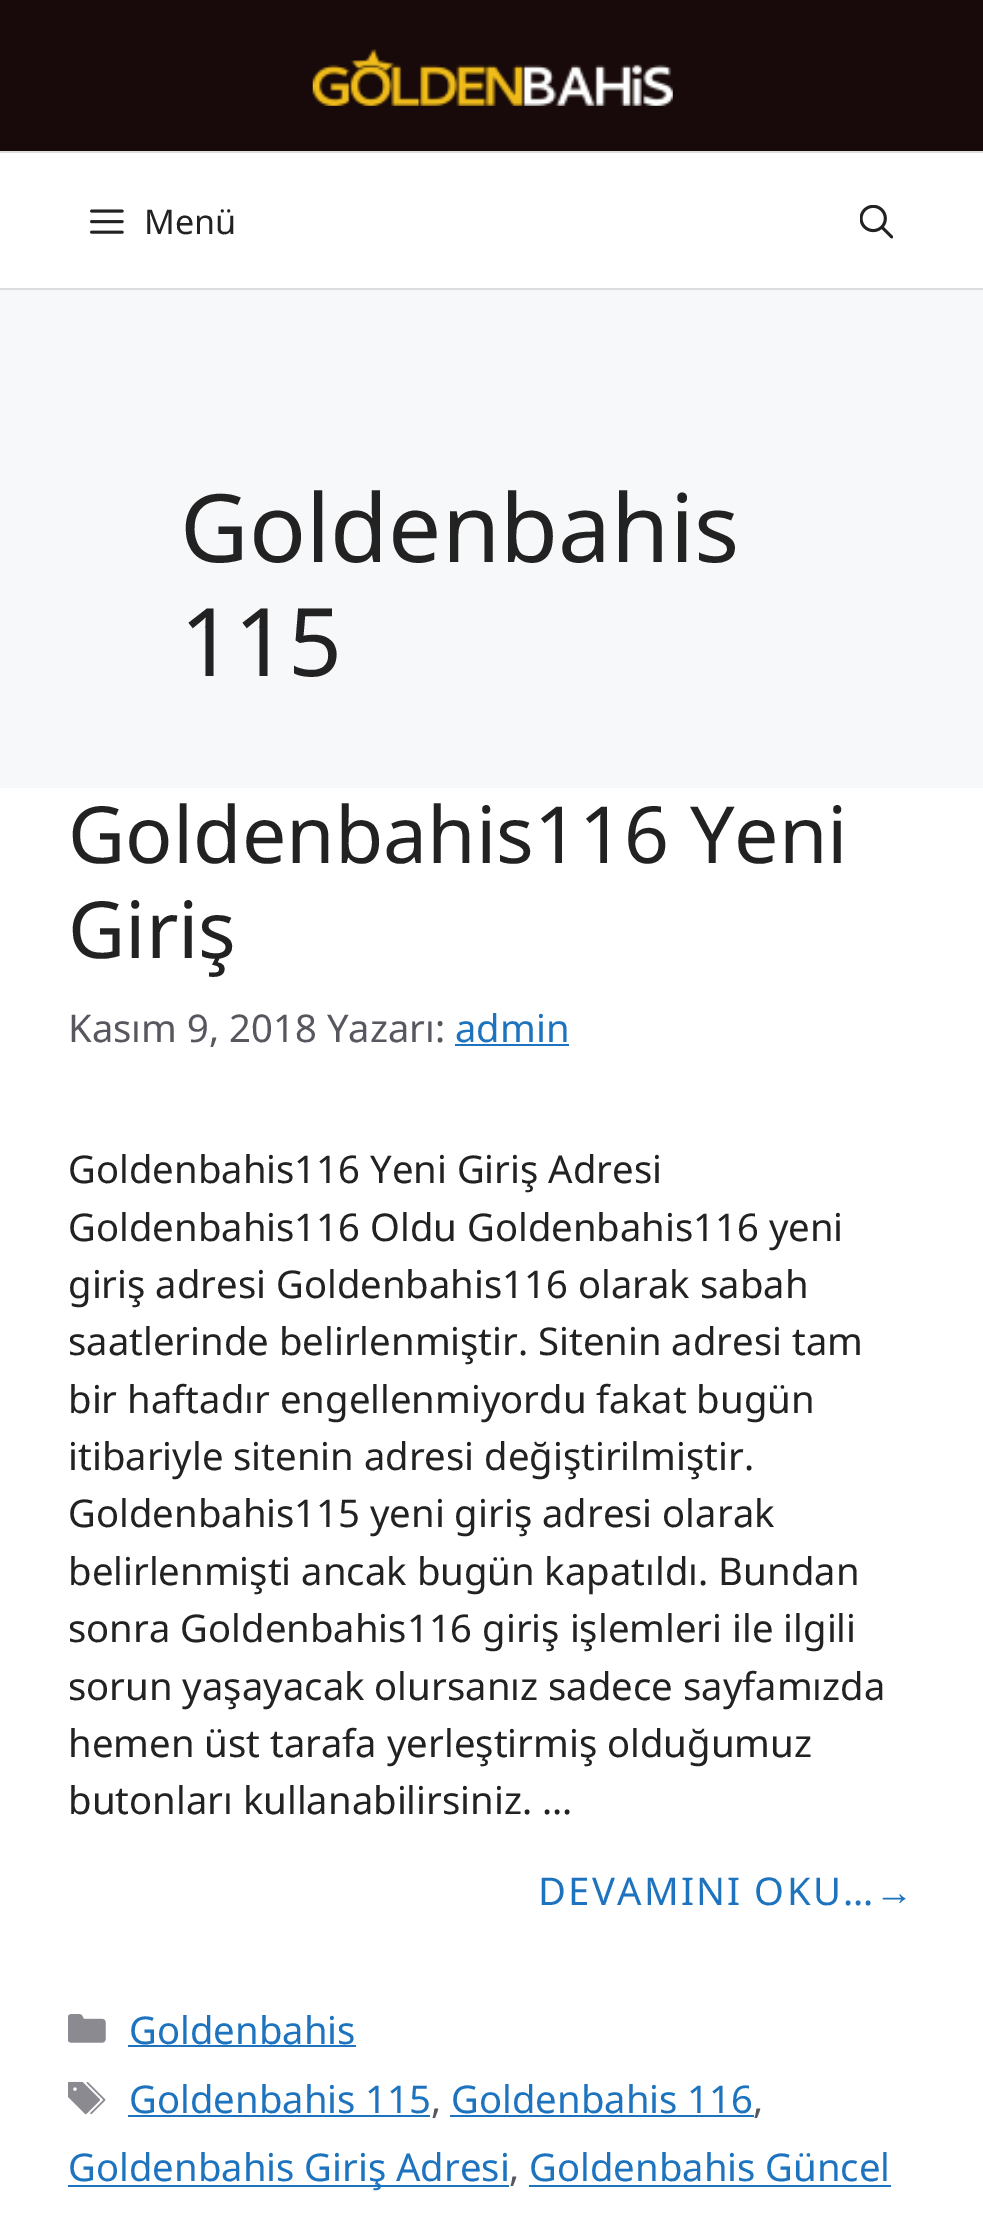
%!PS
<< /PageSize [983 2221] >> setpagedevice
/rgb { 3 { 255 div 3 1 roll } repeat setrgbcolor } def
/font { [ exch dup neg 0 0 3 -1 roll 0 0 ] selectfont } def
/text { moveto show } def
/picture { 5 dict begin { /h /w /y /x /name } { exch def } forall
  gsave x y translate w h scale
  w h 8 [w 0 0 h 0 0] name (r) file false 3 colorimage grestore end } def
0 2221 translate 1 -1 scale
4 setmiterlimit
247 248 249 rgb
0 0 983 2221 rectfill
24 10 10 rgb
0 0 983 151 rectfill
(img_01.rgb) 312 49 361 57 picture
255 255 255 rgb
0 153 983 135 rectfill
221 221 221 rgb
0 151 983 2 rectfill
0 288 983 2 rectfill
(img_02.rgb) 90 209 34 25 picture
(img_03.rgb) 860 205 33 34 picture
255 255 255 rgb
0 788 983 1433 rectfill
30 115 190 rgb
455 1044 114 2 rectfill
(img_04.rgb) 68 2014 38 29 picture
128 2045 228 2 rectfill
(img_05.rgb) 68 2081 38 34 picture
128 2115 302 2 rectfill
450 2115 304 2 rectfill
68 2185 441 2 rectfill
529 2185 362 2 rectfill
/NotoSans-Regular 34 font
34 34 34 rgb
(Menü) 144 234 text
/NotoSans-Regular 94.5 font
(Goldenbahis) 180 562 text
(115) 180 676 text
/NotoSans-Regular 78.75 font
(Goldenbahis116 Yeni) 68 863 text
(Giriş) 68 958 text
/NotoSans-Regular 38.25 font
87 87 96 rgb
(Kasım 9, 2018 Yazarı:) 68 1042 text
30 115 190 rgb
(admin) 455 1042 text
34 34 34 rgb
(Goldenbahis116 Yeni Giriş Adresi) 68 1183 text
(Goldenbahis116 Oldu Goldenbahis116 yeni) 68 1241 text
(giriş adresi Goldenbahis116 olarak sabah) 68 1298 text
(saatlerinde belirlenmiştir. Sitenin adresi tam) 68 1355 text
(bir haftadır engellenmiyordu fakat bugün) 68 1413 text
(itibariyle sitenin adresi değiştirilmiştir.) 68 1470 text
(Goldenbahis115 yeni giriş adresi olarak) 68 1527 text
(belirlenmişti ancak bugün kapatıldı. Bundan) 68 1585 text
(sonra Goldenbahis116 giriş işlemleri ile ilgili) 68 1642 text
(sorun yaşayacak olursanız sadece sayfamızda) 68 1700 text
(hemen üst tarafa yerleştirmiş olduğumuz) 68 1757 text
(butonları kullanabilirsiniz. …) 68 1814 text
30 115 190 rgb
538 1905 moveto 2.25 0 (DEVAMINI OKU…) ashow
/LiberationSans-Regular 38.25 font
875 1905 moveto 2.25 0 (→) ashow
/NotoSans-Regular 38.25 font
(Goldenbahis) 129 2044 text
(Goldenbahis 115) 129 2113 text
87 87 96 rgb
(,) 431 2113 text
30 115 190 rgb
(Goldenbahis 116) 451 2113 text
87 87 96 rgb
(,) 753 2113 text
30 115 190 rgb
(Goldenbahis Giriş Adresi) 68 2181 text
87 87 96 rgb
(,) 509 2181 text
30 115 190 rgb
(Goldenbahis Güncel) 529 2181 text
showpage
